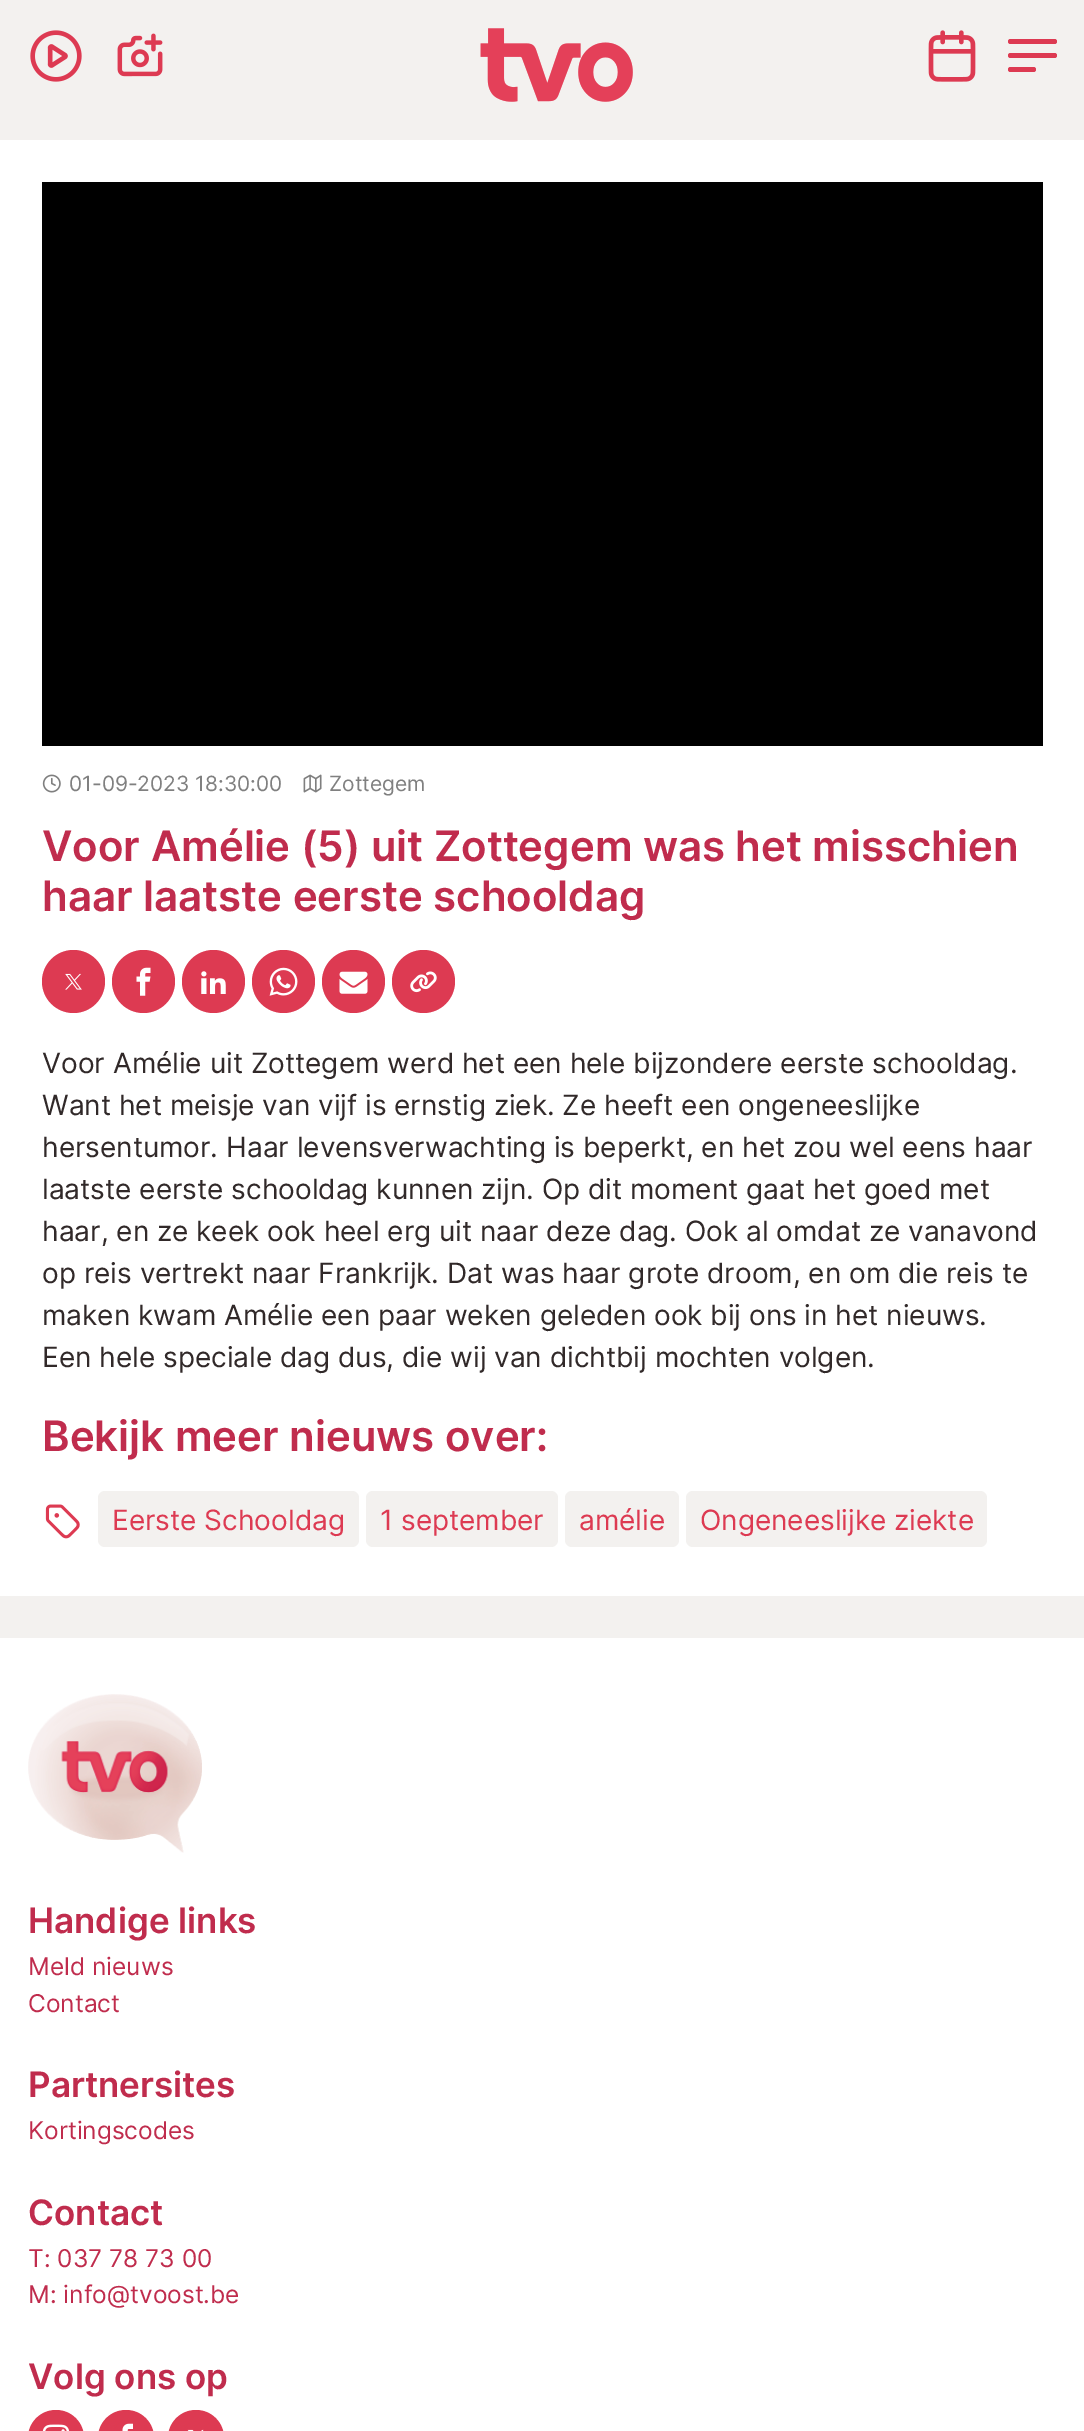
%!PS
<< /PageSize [1084 2431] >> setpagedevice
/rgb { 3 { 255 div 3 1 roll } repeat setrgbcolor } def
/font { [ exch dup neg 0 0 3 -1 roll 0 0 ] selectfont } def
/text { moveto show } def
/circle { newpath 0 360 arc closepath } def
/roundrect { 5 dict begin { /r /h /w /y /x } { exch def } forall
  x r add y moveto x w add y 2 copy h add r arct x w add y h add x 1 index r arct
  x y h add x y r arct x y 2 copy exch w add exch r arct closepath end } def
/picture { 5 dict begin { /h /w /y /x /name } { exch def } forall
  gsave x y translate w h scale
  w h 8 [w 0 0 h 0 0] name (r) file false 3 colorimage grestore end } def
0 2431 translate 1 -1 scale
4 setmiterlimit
243 241 239 rgb
0 0 1084 2431 rectfill
(img_01.rgb) 30 30 52 52 picture
(img_02.rgb) 117 33 46 44 picture
(img_03.rgb) 480 28 153 74 picture
(img_04.rgb) 928 30 48 52 picture
221 58 82 rgb
1008 39 49 5 2.5 roundrect fill
1008 53 49 5 2.5 roundrect fill
1008 67 28 5 2.5 roundrect fill
255 255 255 rgb
0 140 1084 1456 rectfill
0 0 0 rgb
42 182 1001 564 rectfill
(img_05.rgb) 42 774 19 19 picture
(img_06.rgb) 303 774 19 19 picture
221 58 82 rgb
73.5 981.5 31.5 circle fill
(img_07.rgb) 65 973 17 17 picture
143.5 981.5 31.5 circle fill
(img_08.rgb) 136 967 15 29 picture
213.5 981.5 31.5 circle fill
(img_09.rgb) 201 971 25 23 picture
283.5 981.5 31.5 circle fill
(img_10.rgb) 269 967 29 29 picture
353.5 981.5 31.5 circle fill
(img_11.rgb) 339 971 29 23 picture
423.5 981.5 31.5 circle fill
(img_12.rgb) 410 971 27 22 picture
(img_13.rgb) 45 1504 35 35 picture
243 241 239 rgb
98 1491 261 56 7 roundrect fill
366 1491 192 56 7 roundrect fill
565 1491 114 56 7 roundrect fill
686 1491 301 56 7 roundrect fill
255 255 255 rgb
0 1638 1084 793 rectfill
(img_14.rgb) 28 1694 174 159 picture
221 58 82 rgb
28 2410 56 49 28 roundrect fill
(img_15.rgb) 42 2424 27 7 picture
98 2410 56 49 28 roundrect fill
(img_16.rgb) 122 2423 11 8 picture
168 2410 56 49 28 roundrect fill
(img_17.rgb) 187 2429 17 2 picture
/Inter-Regular 21 font
128 128 128 rgb
(01-09-2023 18:30:00) 69 791 text
(Zottegem) 329 791 text
/Inter-SemiBold 42 font
192 44 77 rgb
(Voor Amélie \(5\) uit Zottegem was het misschien) 42 861 text
(haar laatste eerste schooldag) 42 911 text
/Inter-Regular 28 font
49 41 41 rgb
(Voor Amélie uit Zottegem werd het een hele bijzondere eerste schooldag.) 42 1073 text
(Want het meisje van vijf is ernstig ziek. Ze heeft een ongeneeslijke) 42 1115 text
(hersentumor. Haar levensverwachting is beperkt, en het zou wel eens haar) 42 1157 text
(laatste eerste schooldag kunnen zijn. Op dit moment gaat het goed met) 42 1199 text
(haar, en ze keek ook heel erg uit naar deze dag. Ook al omdat ze vanavond) 42 1241 text
(op reis vertrekt naar Frankrijk. Dat was haar grote droom, en om die reis te) 42 1283 text
(maken kwam Amélie een paar weken geleden ook bij ons in het nieuws.) 42 1325 text
(Een hele speciale dag dus, die wij van dichtbij mochten volgen.) 42 1367 text
/Inter-SemiBold 42 font
192 44 77 rgb
(Bekijk meer nieuws over:) 42 1451 text
/Inter-Regular 28 font
221 58 82 rgb
(Eerste Schooldag) 112 1530 text
(1 september) 380 1530 text
(amélie) 579 1530 text
(Ongeneeslijke ziekte) 700 1530 text
/Inter-SemiBold 35 font
192 44 77 rgb
(Handige links) 28 1933 text
/Inter-Regular 24.5 font
(Meld nieuws) 28 1975 text
(Contact) 28 2012 text
/Inter-SemiBold 35 font
(Partnersites) 28 2097 text
/Inter-Regular 24.5 font
(Kortingscodes) 28 2139 text
/Inter-SemiBold 35 font
(Contact) 28 2225 text
/Inter-Regular 24.5 font
(T: 037 78 73 00) 28 2267 text
(M: info@tvoost.be) 28 2303 text
/Inter-SemiBold 35 font
(Volg ons op) 28 2389 text
showpage
